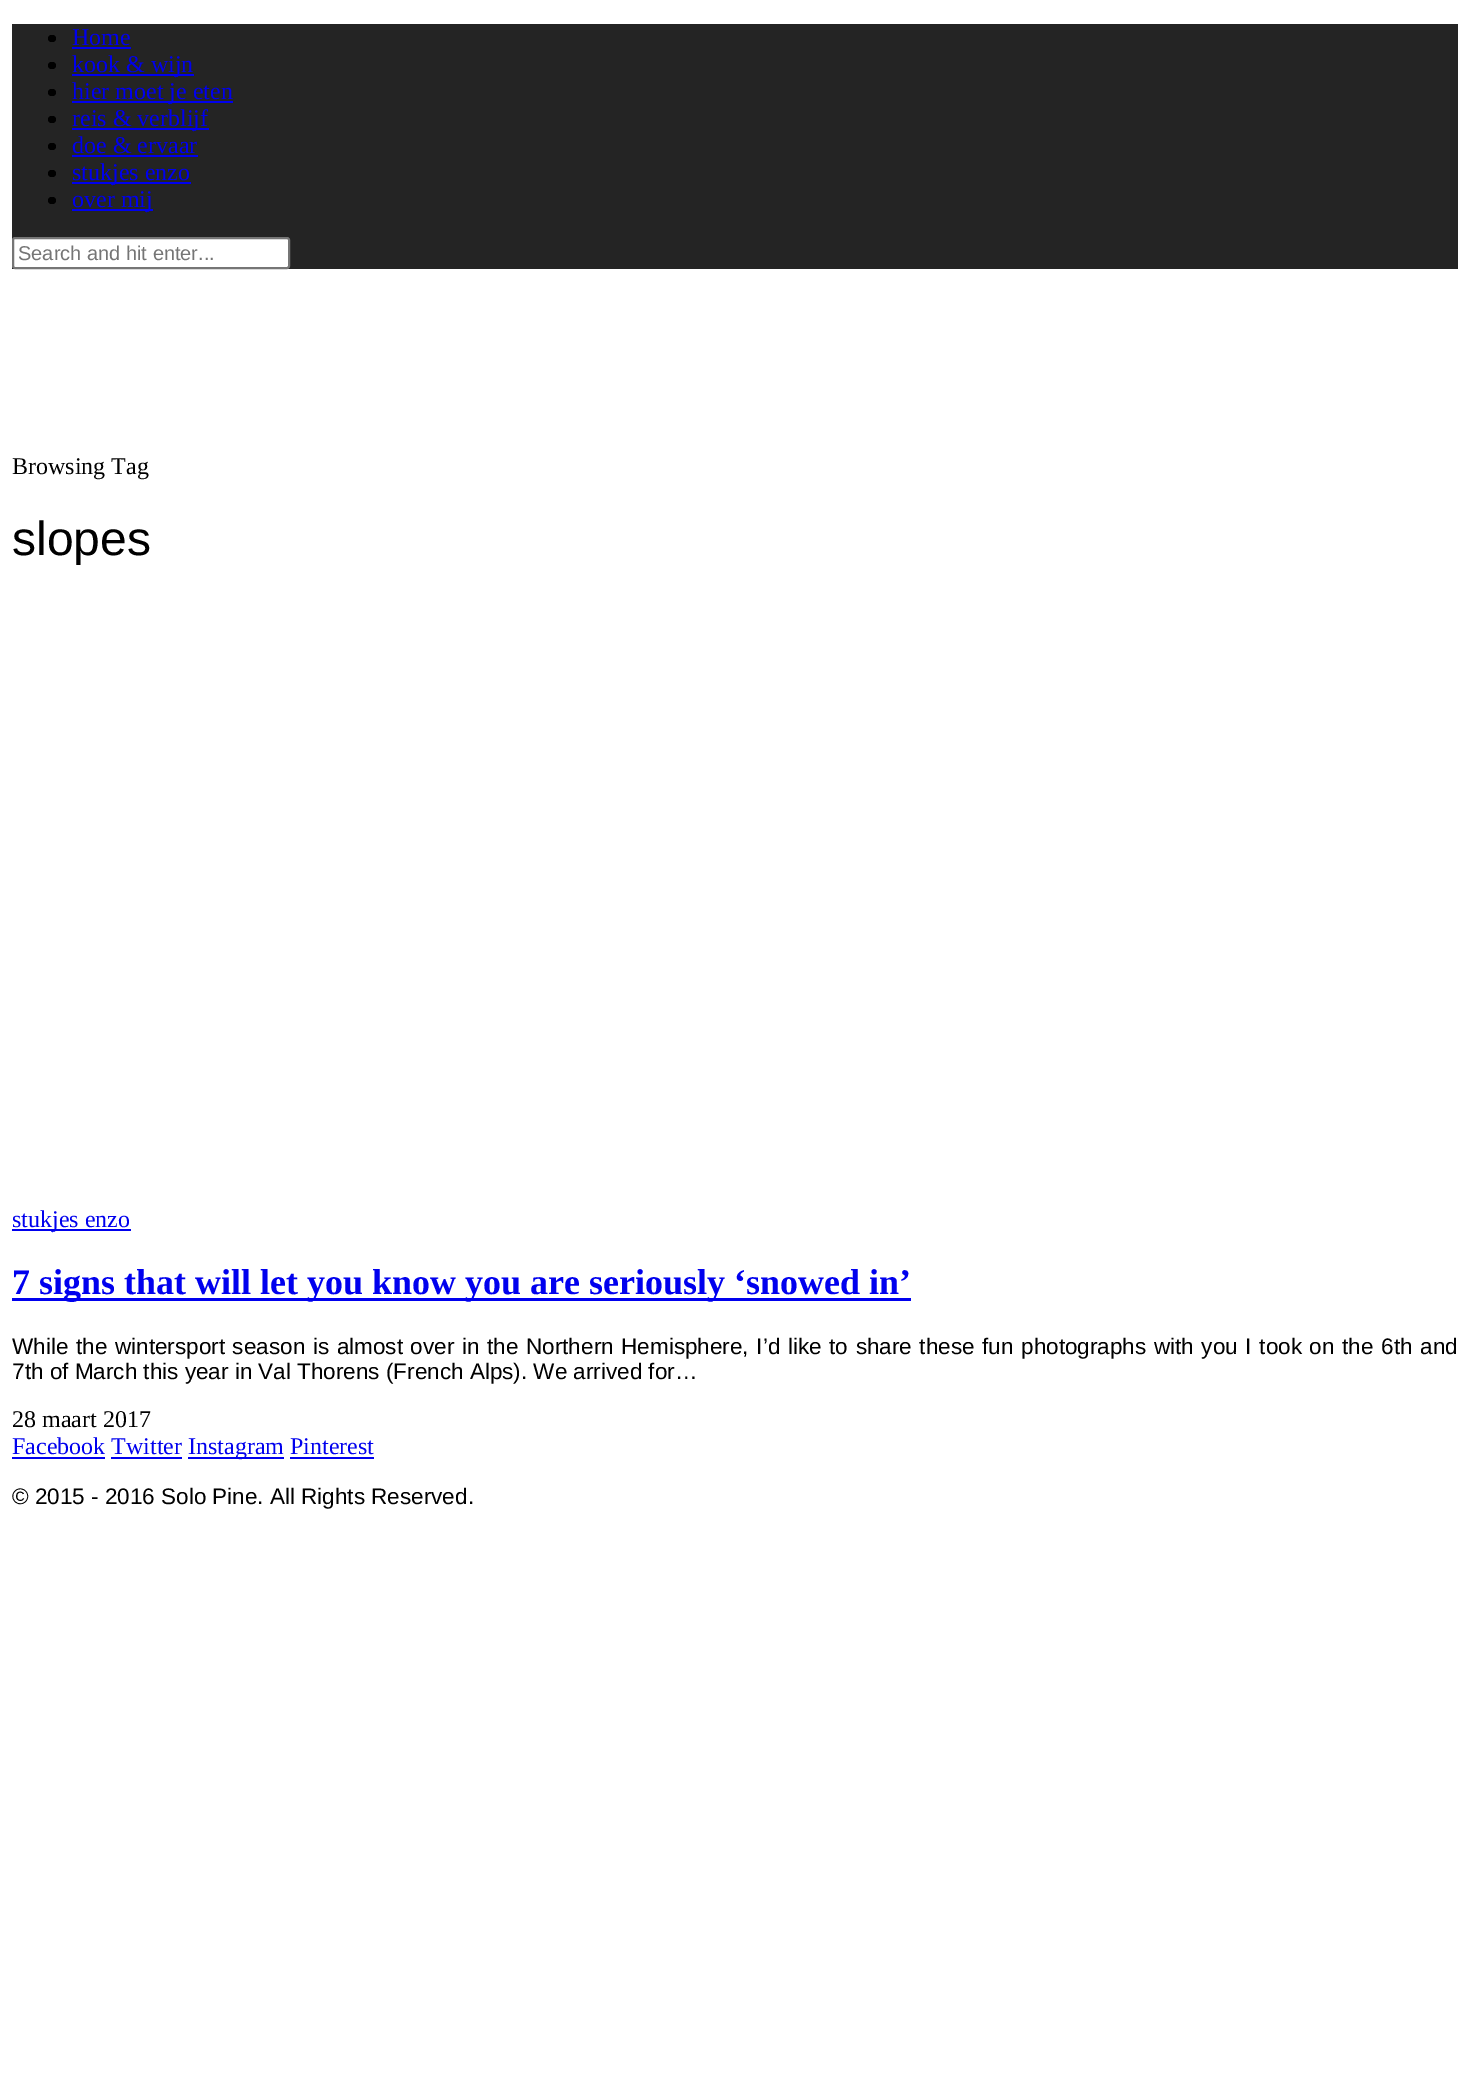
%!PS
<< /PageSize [1470 2083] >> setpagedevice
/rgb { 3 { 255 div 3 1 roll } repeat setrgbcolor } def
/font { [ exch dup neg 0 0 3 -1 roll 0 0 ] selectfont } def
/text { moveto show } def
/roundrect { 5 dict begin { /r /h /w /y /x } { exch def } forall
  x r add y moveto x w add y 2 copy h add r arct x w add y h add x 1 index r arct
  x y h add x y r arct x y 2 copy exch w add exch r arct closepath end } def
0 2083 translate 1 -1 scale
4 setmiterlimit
255 255 255 rgb
0 0 1470 2083 rectfill
36 36 36 rgb
12 24 1446 245 rectfill
0 0 0 rgb
48 35 8 7 3.5 roundrect fill
0 0 238 rgb
72 47 59 2 rectfill
0 0 0 rgb
48 62 8 7 3.5 roundrect fill
0 0 238 rgb
72 74 122 2 rectfill
0 0 0 rgb
48 89 8 7 3.5 roundrect fill
0 0 238 rgb
72 101 161 2 rectfill
0 0 0 rgb
48 116 8 7 3.5 roundrect fill
0 0 238 rgb
72 128 137 2 rectfill
0 0 0 rgb
48 143 8 7 3.5 roundrect fill
0 0 238 rgb
72 155 126 2 rectfill
0 0 0 rgb
48 170 8 7 3.5 roundrect fill
0 0 238 rgb
72 182 119 2 rectfill
0 0 0 rgb
48 197 8 7 3.5 roundrect fill
0 0 238 rgb
72 209 81 2 rectfill
255 255 255 rgb
13 238 276 30 2 roundrect gsave fill grestore
118 118 118 rgb
2 setlinewidth
stroke
0 0 238 rgb
12 1229 119 2 rectfill
12 1298 899 3 rectfill
12 1457 93 2 rectfill
188 1457 96 2 rectfill
111 1457 71 2 rectfill
290 1457 84 2 rectfill
/LiberationSerif-Regular 24 font
(Home) 72 45 text
(kook & wijn) 72 72 text
(hier moet je eten) 72 99 text
(reis & verblijf) 72 126 text
(doe & ervaar) 72 153 text
(stukjes enzo) 72 180 text
(over mij) 72 207 text
/LiberationSans-Regular 20 font
117 117 117 rgb
(Search and hit enter...) 18 260 text
/LiberationSerif-Regular 24 font
0 0 0 rgb
(Browsing Tag) 12 474 text
/LiberationSans-Regular 48 font
(slopes) 12 555 text
/LiberationSerif-Regular 24 font
0 0 238 rgb
(stukjes enzo) 12 1227 text
/LiberationSerif-Bold 36 font
(7 signs that will let you know you are seriously ‘snowed in’) 12 1294 text
/LiberationSans-Regular 22.5 font
0 0 0 rgb
12 1354 moveto 1.4 0 32 (While the wintersport season is almost over in the Northern Hemisphere, I’d like to share these fun photographs with you I took on the 6th and) widthshow
(7th of March this year in Val Thorens \(French Alps\). We arrived for…) 12 1379 text
/LiberationSerif-Regular 24 font
(28 maart 2017) 12 1427 text
0 0 238 rgb
(Facebook Twitter) 12 1454 text
(Instagram Pinterest) 188 1454 text
/LiberationSans-Regular 22.5 font
0 0 0 rgb
(© 2015 - 2016 Solo Pine. All Rights Reserved.) 12 1504 text
showpage
